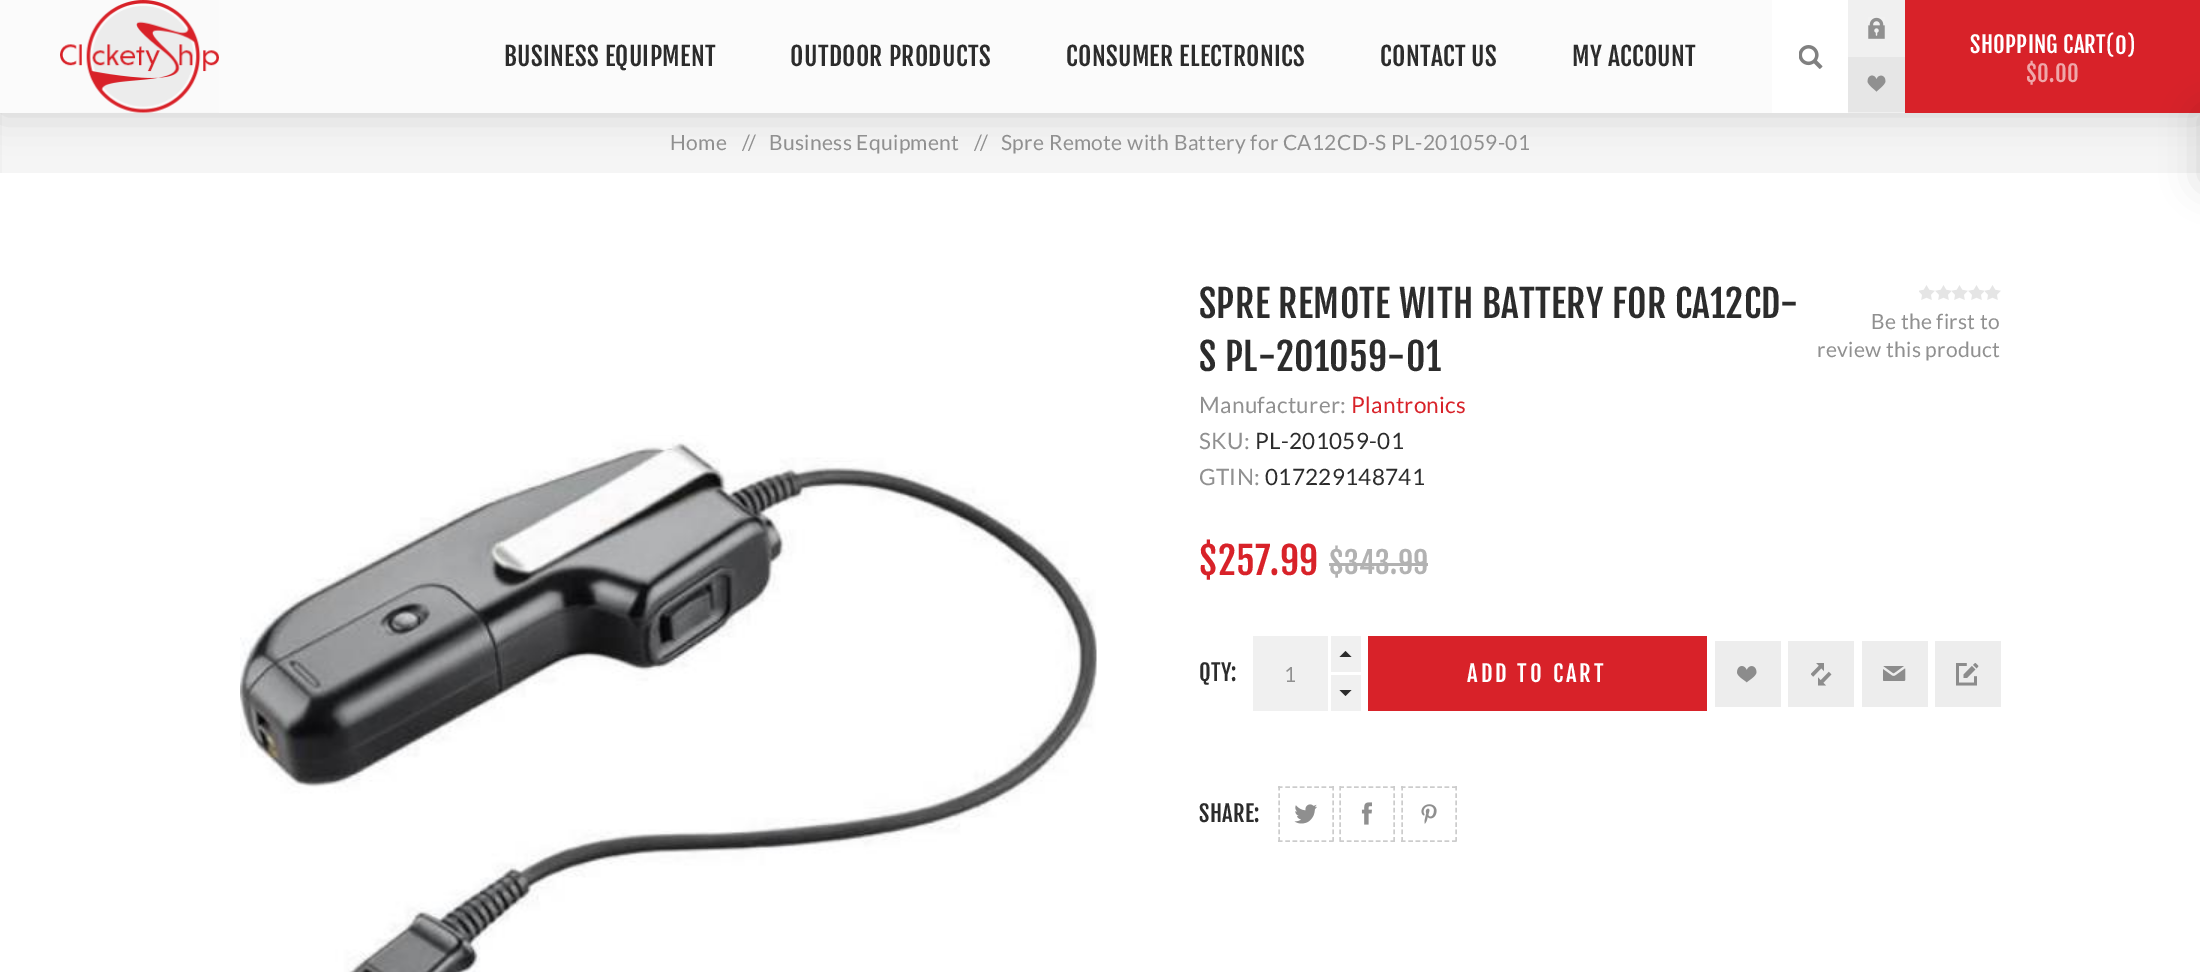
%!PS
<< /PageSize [2200 972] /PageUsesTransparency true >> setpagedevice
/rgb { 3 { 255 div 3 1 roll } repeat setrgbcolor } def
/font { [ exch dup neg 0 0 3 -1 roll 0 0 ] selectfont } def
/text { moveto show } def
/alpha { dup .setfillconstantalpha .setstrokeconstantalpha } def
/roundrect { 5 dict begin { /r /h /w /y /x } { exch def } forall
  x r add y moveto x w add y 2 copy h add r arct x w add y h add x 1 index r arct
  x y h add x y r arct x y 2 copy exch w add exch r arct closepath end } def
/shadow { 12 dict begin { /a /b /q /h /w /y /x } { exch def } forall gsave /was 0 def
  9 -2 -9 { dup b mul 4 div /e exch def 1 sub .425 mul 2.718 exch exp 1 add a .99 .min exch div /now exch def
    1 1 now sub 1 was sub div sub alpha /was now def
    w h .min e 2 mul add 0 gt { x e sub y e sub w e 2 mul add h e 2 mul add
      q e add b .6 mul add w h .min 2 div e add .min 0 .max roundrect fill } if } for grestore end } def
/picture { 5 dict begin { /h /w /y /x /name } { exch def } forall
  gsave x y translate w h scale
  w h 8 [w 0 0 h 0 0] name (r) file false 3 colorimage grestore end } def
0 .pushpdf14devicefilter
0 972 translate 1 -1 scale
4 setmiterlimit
240 240 240 rgb
0 0 2200 972 rectfill
245 245 245 rgb
2 113 2198 60 rectfill
gsave
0 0 moveto 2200 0 rlineto 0 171 rlineto -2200 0 rlineto closepath 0 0 moveto 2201 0 rlineto 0 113 rlineto -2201 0 rlineto closepath eoclip newpath
0 0 0 rgb
0 0 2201 113 0 19 0.15 shadow
grestore
0.7 alpha
255 255 255 rgb
0 0 1772 113 rectfill
1 alpha
(img_01.rgb) 60 0 159 113 picture
1772 0 76 113 rectfill
(img_02.rgb) 1799 45 24 24 picture
(img_03.rgb) 1868 17 17 22 picture
230 230 230 rgb
1848 57 57 55 rectfill
(img_04.rgb) 1867 75 19 17 picture
216 34 41 rgb
1905 0 295 113 rectfill
255 255 255 rgb
0 173 2200 799 rectfill
0 0 0 rgb
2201 113 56 70 0 19 0.15 shadow
(img_05.rgb) 240 435 857 537 picture
229 229 229 rgb
1919 285 82 15 rectfill
(img_06.rgb) 1919 285 82 15 picture
178 178 178 rgb
1329 563 99 3 rectfill
240 240 240 rgb
1331 636 30 36 rectfill
44 44 44 rgb
1351.5 657 moveto -12 0 rlineto 6 -6 rlineto closepath fill
240 240 240 rgb
1253 636 75 75 rectfill
1331 675 30 36 rectfill
44 44 44 rgb
1339.5 690 moveto 12 0 rlineto -6 6 rlineto closepath fill
216 34 41 rgb
1368 636 339 75 rectfill
237 237 237 rgb
1715 641 66 66 rectfill
(img_07.rgb) 1737 666 20 17 picture
1788 641 66 66 rectfill
(img_08.rgb) 1811 663 21 23 picture
1862 641 66 66 rectfill
(img_09.rgb) 1883 666 23 15 picture
1935 641 66 66 rectfill
(img_10.rgb) 1956 663 23 23 picture
204 204 204 rgb
1.5 setlinewidth
[4.5 2.79] 0 setdash
1278 787 moveto 55.5 0 rlineto 1333 786 moveto 0 55.5 rlineto 1278 841 moveto 55.5 0 rlineto 1279 786 moveto 0 55.5 rlineto stroke
(img_11.rgb) 1294 804 23 20 picture
1339.5 787 moveto 55.5 0 rlineto 1394 786 moveto 0 55.5 rlineto 1339.5 841 moveto 55.5 0 rlineto 1340 786 moveto 0 55.5 rlineto stroke
(img_12.rgb) 1361 802 11 23 picture
1401 787 moveto 55.5 0 rlineto 1456 786 moveto 0 55.5 rlineto 1401 841 moveto 55.5 0 rlineto 1402 786 moveto 0 55.5 rlineto stroke
(img_13.rgb) 1421 804 16 20 picture
/FjallaOne-Regular 25.5 font
44 44 44 rgb
504 66 moveto 0.3 0 (BUSINESS EQUIPMENT) ashow
790 66 moveto 0.3 0 (OUTDOOR PRODUCTS) ashow
1066 66 moveto 0.3 0 (CONSUMER ELECTRONICS) ashow
1380 66 moveto 0.3 0 (CONTACT US) ashow
1572 66 moveto 0.3 0 (MY ACCOUNT) ashow
/FjallaOne-Regular 22.5 font
255 255 255 rgb
1970 53 moveto 0.3 0 (SHOPPING CART) ashow
2106 54 moveto 0.3 0 (\(0\)) ashow
239 167 169 rgb
2026 82 moveto 0.3 0 ($0.00) ashow
/Lato-Regular 21 font
144 144 144 rgb
670 150 moveto 0.3 0 (Home) ashow
742 150 moveto -2 0 (//) ashow
769 150 moveto 0.3 0 (Business Equipment) ashow
974 150 moveto -2 0 (//) ashow
1001 150 moveto 0.3 0 (Spre Remote with Battery for CA12CD-S PL-201059-01) ashow
/FjallaOne-Regular 37.5 font
44 44 44 rgb
1199 318 moveto 0.3 0 (SPRE REMOTE WITH BATTERY FOR CA12CD-) ashow
1199 371 moveto 0.3 0 (S PL-201059-01) ashow
/Lato-Regular 21 font
144 144 144 rgb
1871 329 moveto 0.3 0 (Be the first to) ashow
1817 357 moveto 0.3 0 (review this product) ashow
/Lato-Regular 22.5 font
1199 413 moveto 0.3 0 (Manufacturer:) ashow
216 34 41 rgb
1351 413 moveto 0.3 0 (Plantronics) ashow
144 144 144 rgb
1199 449 moveto 0.3 0 (SKU:) ashow
44 44 44 rgb
1255 449 moveto 0.3 0 (PL-201059-01) ashow
144 144 144 rgb
1199 485 moveto 0.3 0 (GTIN:) ashow
44 44 44 rgb
1265 485 moveto 0.3 0 (017229148741) ashow
/FjallaOne-Regular 37.5 font
216 34 41 rgb
1199 575 moveto 0.3 0 ($257.99) ashow
/FjallaOne-Regular 30 font
178 178 178 rgb
1329 574 moveto 0.3 0 ($343.99) ashow
/FjallaOne-Regular 22.5 font
44 44 44 rgb
1199 681 moveto 0.3 0 (QTY:) ashow
/Lato-Regular 21 font
144 144 144 rgb
(1) 1284 682 text
/FjallaOne-Regular 22.5 font
255 255 255 rgb
1467 682 moveto 3 0 (ADD TO CART) ashow
44 44 44 rgb
1199 822 moveto 0.3 0 (SHARE:) ashow
.poppdf14devicefilter showpage
